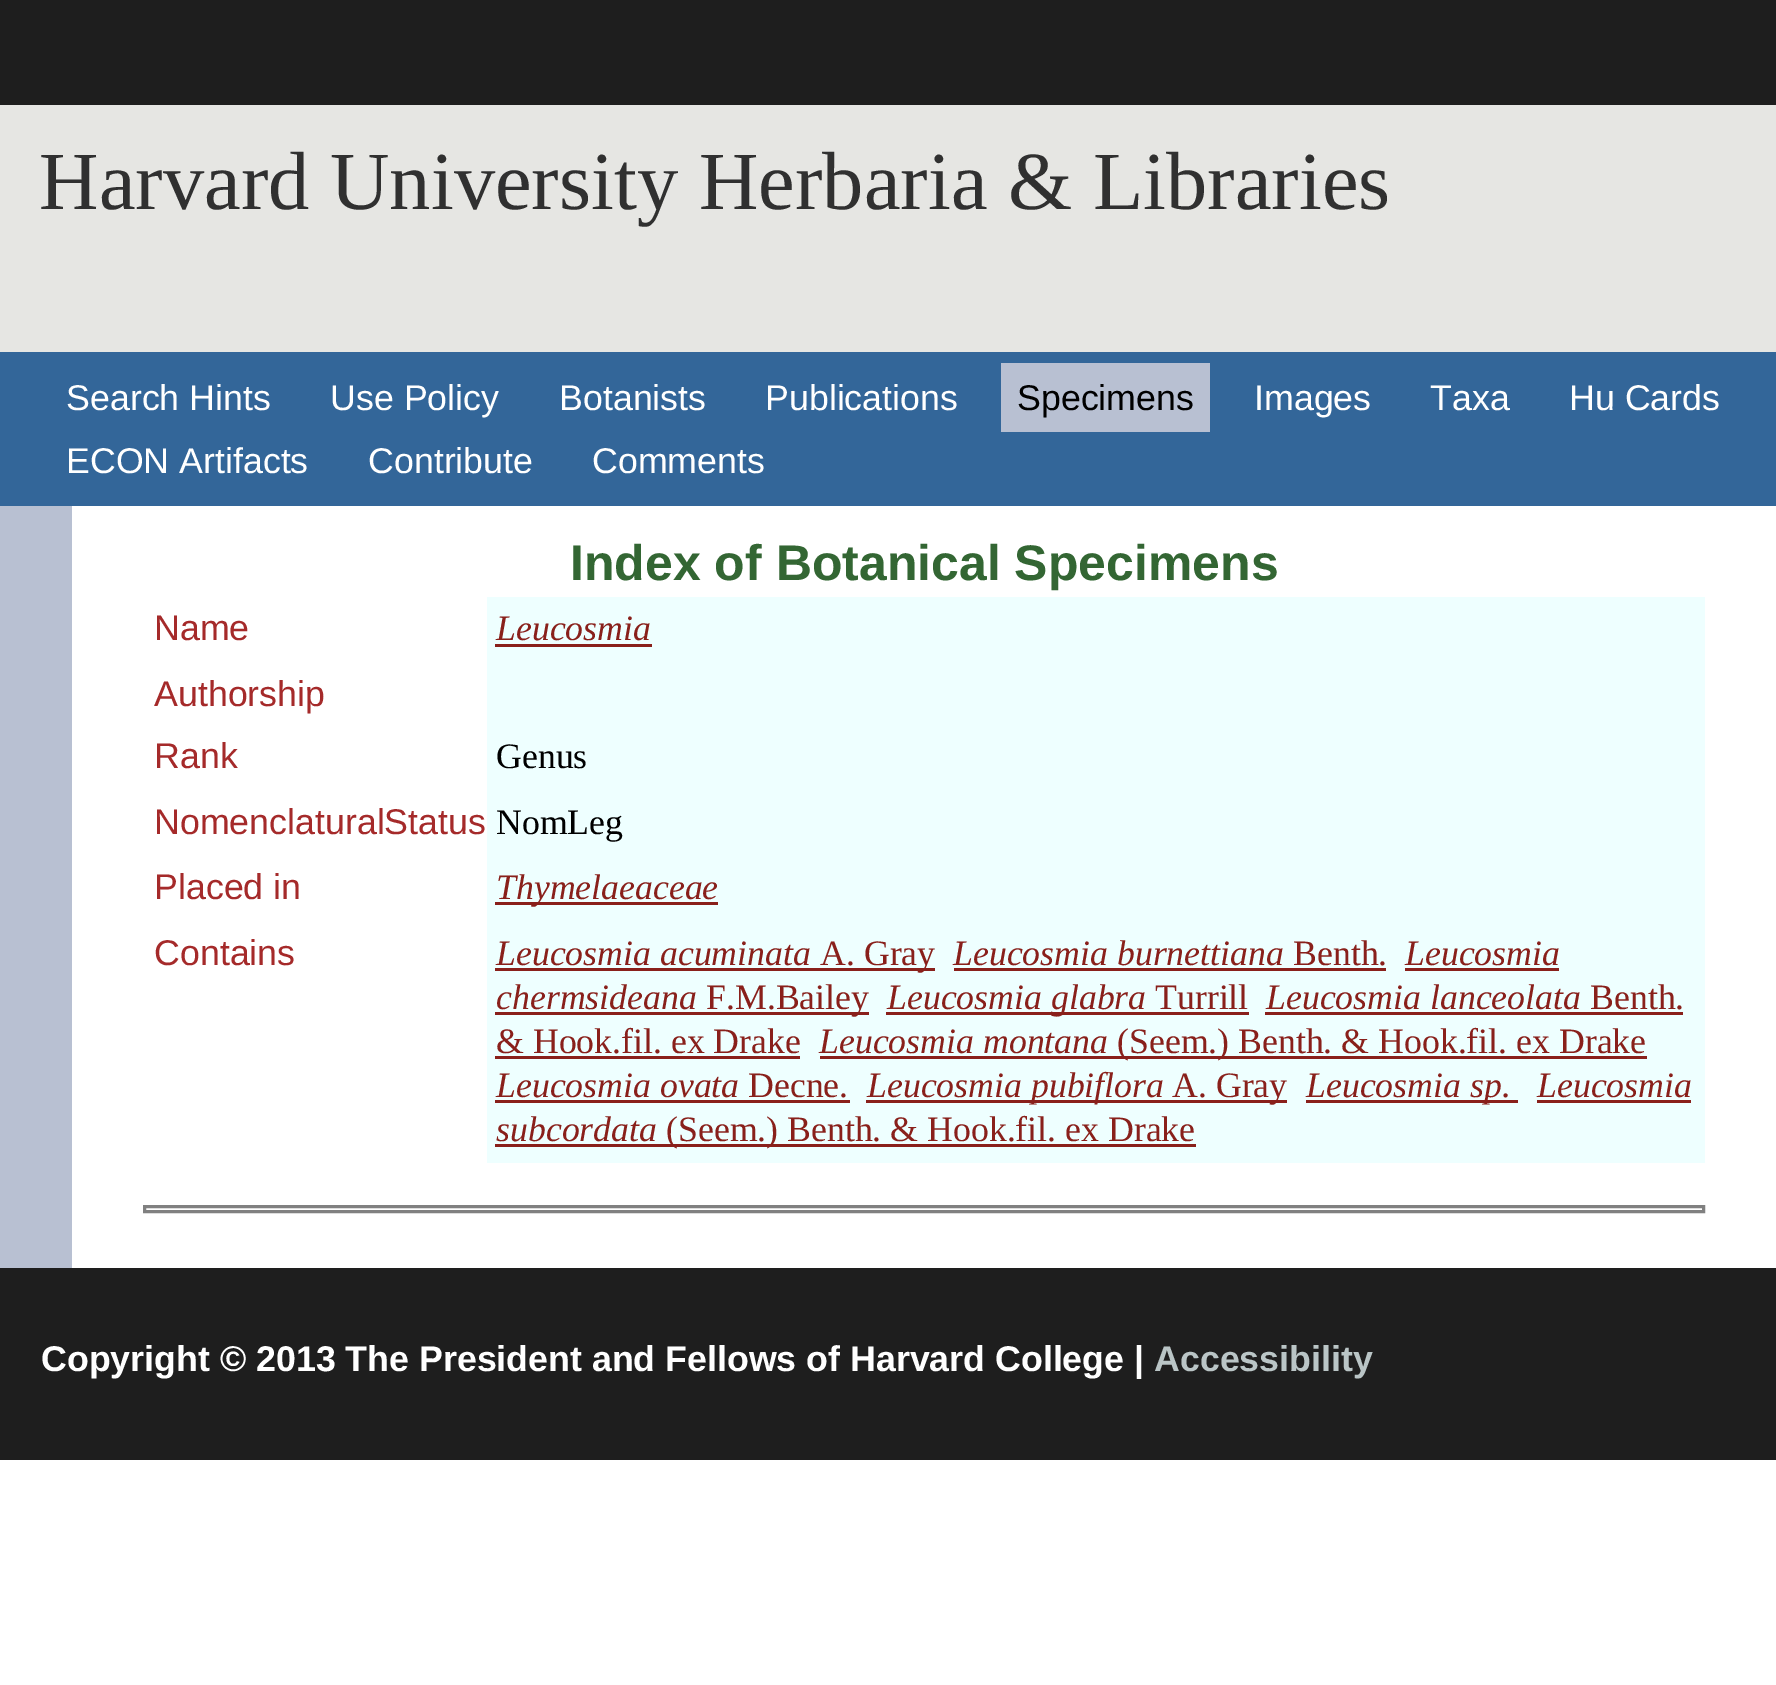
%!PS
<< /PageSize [1776 1685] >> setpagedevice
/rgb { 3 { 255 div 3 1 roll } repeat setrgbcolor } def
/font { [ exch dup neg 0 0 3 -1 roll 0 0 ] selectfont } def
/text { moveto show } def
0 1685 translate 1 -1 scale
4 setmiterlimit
255 255 255 rgb
0 0 1776 1685 rectfill
30 30 30 rgb
0 0 1776 105 rectfill
230 230 227 rgb
0 105 1776 247 rectfill
51 102 153 rgb
0 352 1776 154 rectfill
184 192 210 rgb
1001 363 209 69 rectfill
0 506 72 762 rectfill
238 255 255 rgb
487 597 1218 566 rectfill
137 32 27 rgb
495 644 157 3 rectfill
495 902 223 3 rectfill
495 968 440 3 rectfill
954 968 432 3 rectfill
1405 968 154 3 rectfill
495 1012 374 3 rectfill
886 1012 363 3 rectfill
1265 1012 418 3 rectfill
495 1056 305 3 rectfill
820 1056 827 3 rectfill
495 1100 355 3 rectfill
866 1100 421 3 rectfill
1306 1100 212 3 rectfill
1537 1100 154 3 rectfill
495 1144 701 3 rectfill
128 128 128 rgb
3 setlinewidth
144.5 1206.5 1559 5 rectstroke
30 30 30 rgb
0 1268 1776 192 rectfill
/LiberationSerif-Regular 82.5 font
48 48 48 rgb
(Harvard University Herbaria & Libraries) 39 209 text
/LiberationSans-Regular 35.75 font
255 255 255 rgb
(Search Hints) 66 410 text
(Use Policy) 330 410 text
(Botanists) 559 410 text
(Publications) 765 410 text
0 0 0 rgb
(Specimens) 1017 410 text
255 255 255 rgb
(Images) 1254 410 text
(Taxa) 1430 410 text
(Hu Cards) 1569 410 text
(ECON Artifacts) 66 473 text
(Contribute) 368 473 text
(Comments) 592 473 text
/LiberationSans-Bold 50 font
51 102 51 rgb
(Index of Botanical Specimens) 570 580 text
/LiberationSans-Regular 35.75 font
165 42 42 rgb
(Name) 154 640 text
/LiberationSerif-Italic 35.75 font
137 32 27 rgb
(Leucosmia) 496 640 text
/LiberationSans-Regular 35.75 font
165 42 42 rgb
(Authorship) 154 706 text
(Rank) 154 768 text
/LiberationSerif-Regular 35.75 font
0 0 0 rgb
(Genus) 496 768 text
/LiberationSans-Regular 35.75 font
165 42 42 rgb
(NomenclaturalStatus) 154 834 text
/LiberationSerif-Regular 35.75 font
0 0 0 rgb
(NomLeg) 496 834 text
/LiberationSans-Regular 35.75 font
165 42 42 rgb
(Placed in) 154 899 text
/LiberationSerif-Italic 35.75 font
137 32 27 rgb
(Thymelaeaceae) 496 899 text
/LiberationSans-Regular 35.75 font
165 42 42 rgb
(Contains) 154 965 text
/LiberationSerif-Italic 35.75 font
137 32 27 rgb
(Leucosmia acuminata) 496 965 text
/LiberationSerif-Regular 35.75 font
(A. Gray) 820 965 text
/LiberationSerif-Italic 35.75 font
(Leucosmia burnettiana) 953 965 text
/LiberationSerif-Regular 35.75 font
(Benth.) 1293 965 text
/LiberationSerif-Italic 35.75 font
(Leucosmia) 1405 965 text
(chermsideana) 496 1009 text
/LiberationSerif-Regular 35.75 font
(F.M.Bailey) 706 1009 text
/LiberationSerif-Italic 35.75 font
(Leucosmia glabra) 887 1009 text
/LiberationSerif-Regular 35.75 font
(Turrill) 1155 1009 text
/LiberationSerif-Italic 35.75 font
(Leucosmia lanceolata) 1266 1009 text
/LiberationSerif-Regular 35.75 font
(Benth.) 1590 1009 text
(& Hook.fil. ex Drake) 496 1053 text
/LiberationSerif-Italic 35.75 font
(Leucosmia montana) 819 1053 text
/LiberationSerif-Regular 35.75 font
(\(Seem.\) Benth. & Hook.fil. ex Drake) 1117 1053 text
/LiberationSerif-Italic 35.75 font
(Leucosmia ovata) 496 1097 text
/LiberationSerif-Regular 35.75 font
(Decne.) 748 1097 text
/LiberationSerif-Italic 35.75 font
(Leucosmia pubiflora) 867 1097 text
/LiberationSerif-Regular 35.75 font
(A. Gray) 1172 1097 text
/LiberationSerif-Italic 35.75 font
(Leucosmia sp.) 1306 1097 text
(Leucosmia) 1537 1097 text
(subcordata) 496 1141 text
/LiberationSerif-Regular 35.75 font
(\(Seem.\) Benth. & Hook.fil. ex Drake) 666 1141 text
/LiberationSans-Bold 35.75 font
255 255 255 rgb
(Copyright © 2013 The President and Fellows of Harvard College |) 41 1371 text
186 197 198 rgb
(Accessibility) 1154 1371 text
showpage
